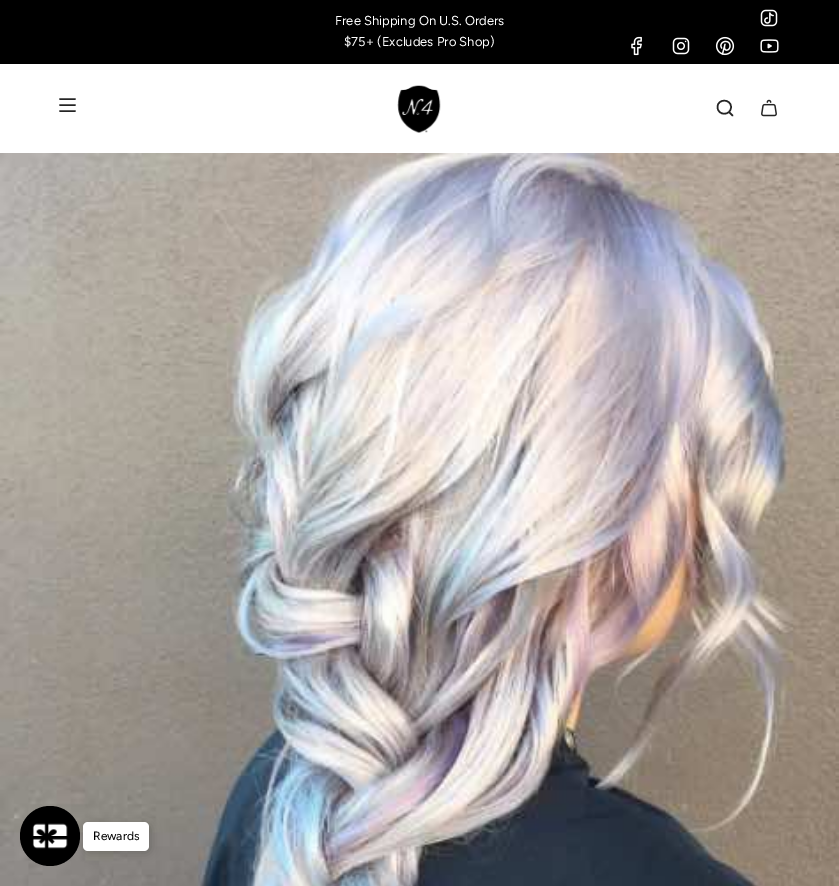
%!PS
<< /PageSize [839 886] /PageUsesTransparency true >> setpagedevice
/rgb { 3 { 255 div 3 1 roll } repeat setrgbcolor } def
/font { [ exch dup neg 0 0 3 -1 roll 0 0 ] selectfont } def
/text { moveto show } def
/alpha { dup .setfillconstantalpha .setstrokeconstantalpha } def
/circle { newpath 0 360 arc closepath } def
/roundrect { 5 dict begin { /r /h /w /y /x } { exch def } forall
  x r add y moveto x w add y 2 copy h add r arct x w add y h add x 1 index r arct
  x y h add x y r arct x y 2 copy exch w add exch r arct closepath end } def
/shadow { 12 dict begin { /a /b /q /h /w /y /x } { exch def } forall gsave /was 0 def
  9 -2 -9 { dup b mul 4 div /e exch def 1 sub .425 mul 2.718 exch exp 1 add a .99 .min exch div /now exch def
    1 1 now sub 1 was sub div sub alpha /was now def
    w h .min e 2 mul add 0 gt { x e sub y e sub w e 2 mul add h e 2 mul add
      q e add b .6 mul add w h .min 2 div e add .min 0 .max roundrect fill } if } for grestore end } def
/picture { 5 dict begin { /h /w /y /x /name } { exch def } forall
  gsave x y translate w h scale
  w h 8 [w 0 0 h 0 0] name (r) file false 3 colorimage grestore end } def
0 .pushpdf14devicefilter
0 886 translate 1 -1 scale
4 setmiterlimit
255 255 255 rgb
0 0 839 886 rectfill
0 0 0 rgb
0 0 839 64 rectfill
(img_01.rgb) 760 9 18 18 picture
(img_02.rgb) 631 36 11 20 picture
(img_03.rgb) 672 37 18 18 picture
(img_04.rgb) 715 36 20 20 picture
(img_05.rgb) 760 39 19 14 picture
36 36 36 rgb
1.5 setlinewidth
1 setlinecap
1 setlinejoin
60 99 moveto 15 0 rlineto 60 105 moveto 15 0 rlineto 60 111 moveto 15 0 rlineto stroke
(img_06.rgb) 397 85 44 48 picture
729 112 moveto 3.5 3.5 rlineto 717.5 107 moveto 0 9 13.5 9 13.5 0 rcurveto 0 -8.5 -13.5 -8.5 -13.5 0 rcurveto closepath stroke
(img_07.rgb) 761 99 16 18 picture
(img_08.rgb) 0 153 839 733 picture
0 0 0 rgb
50 836 30 circle fill
(img_09.rgb) 32 823 36 26 picture
85 824 66 29 5 5 0.2 shadow
255 255 255 rgb
83 822 66 29 5 roundrect fill
/Figtree-Regular 13 font
(Free Shipping On U.S. Orders) 335 25 text
($75+ \(Excludes Pro Shop\)) 344 46 text
/Figtree-Regular 12 font
0 0 0 rgb
(Rewards) 93 840 text
.poppdf14devicefilter showpage
